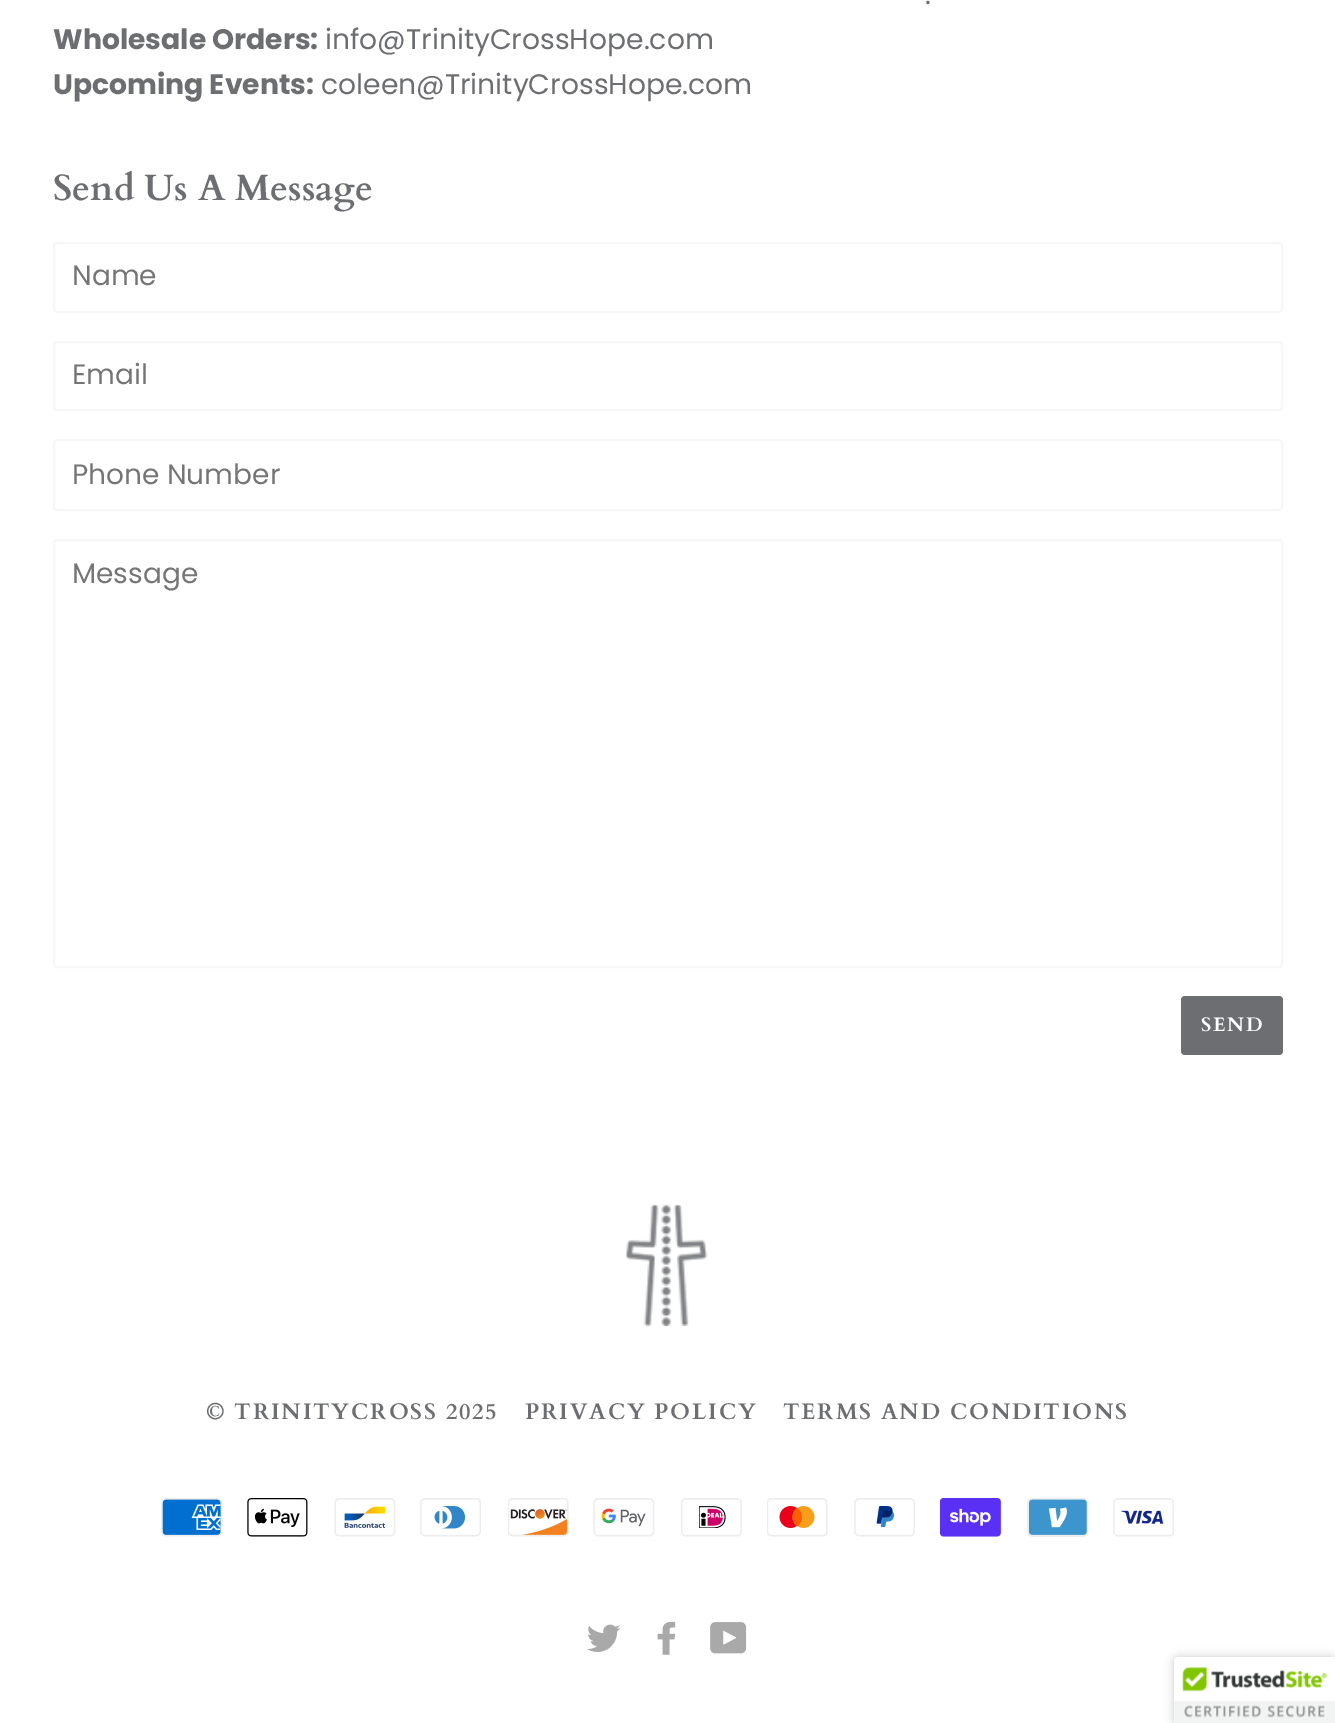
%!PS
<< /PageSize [1335 1723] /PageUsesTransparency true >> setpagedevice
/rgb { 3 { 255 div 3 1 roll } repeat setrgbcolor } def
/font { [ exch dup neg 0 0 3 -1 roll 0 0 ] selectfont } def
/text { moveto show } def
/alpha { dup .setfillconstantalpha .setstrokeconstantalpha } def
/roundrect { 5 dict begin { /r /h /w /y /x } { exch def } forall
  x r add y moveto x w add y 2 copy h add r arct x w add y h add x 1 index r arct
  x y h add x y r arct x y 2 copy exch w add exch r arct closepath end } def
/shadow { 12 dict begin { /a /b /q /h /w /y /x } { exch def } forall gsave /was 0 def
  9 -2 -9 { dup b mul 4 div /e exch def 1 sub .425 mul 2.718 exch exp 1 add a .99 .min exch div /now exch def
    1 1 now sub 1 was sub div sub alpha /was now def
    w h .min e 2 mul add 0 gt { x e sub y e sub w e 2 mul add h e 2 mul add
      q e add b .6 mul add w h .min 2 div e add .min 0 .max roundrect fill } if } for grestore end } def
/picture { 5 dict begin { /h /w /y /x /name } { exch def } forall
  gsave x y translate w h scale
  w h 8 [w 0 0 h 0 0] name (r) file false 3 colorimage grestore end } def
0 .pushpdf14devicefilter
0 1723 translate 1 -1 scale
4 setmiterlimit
255 255 255 rgb
0 0 1335 1723 rectfill
247 247 247 rgb
2 setlinewidth
54 243 1228 69 3 roundrect stroke
54 342 1228 68 3 roundrect stroke
54 440 1228 70 3 roundrect stroke
54 540 1228 427 3 roundrect stroke
109 110 113 rgb
1181 996 102 59 4 roundrect fill
(img_01.rgb) 626 1204 82 122 picture
(img_02.rgb) 161 1498 61 39 picture
(img_03.rgb) 247 1498 61 39 picture
(img_04.rgb) 334 1498 62 39 picture
(img_05.rgb) 420 1498 61 39 picture
(img_06.rgb) 508 1498 61 39 picture
(img_07.rgb) 593 1498 62 39 picture
(img_08.rgb) 681 1498 61 39 picture
(img_09.rgb) 767 1498 61 39 picture
(img_10.rgb) 854 1498 61 39 picture
(img_11.rgb) 940 1498 61 39 picture
(img_12.rgb) 1027 1498 61 39 picture
(img_13.rgb) 1113 1498 61 39 picture
(img_14.rgb) 587 1624 34 28 picture
(img_15.rgb) 657 1621 19 34 picture
(img_16.rgb) 710 1622 37 32 picture
0 0 0 rgb
1174 1657 161 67 4 4.5 0.2 shadow
255 255 255 rgb
1178 1657 moveto 157 0 rlineto 0 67 rlineto -161 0 rlineto 0 -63 rlineto 0 -2 2 -4 4 -4 rcurveto closepath fill
(img_17.rgb) 1174 1657 161 66 picture
/Poppins-Regular 28.2 font
109 110 113 rgb
(.) 925 4 text
/Poppins-Bold 28.2 font
(Wholesale Orders:) 53 49 text
/Poppins-Regular 28.2 font
(info@TrinityCrossHope.com) 325 49 text
/Poppins-Bold 28.2 font
(Upcoming Events:) 53 94 text
/Poppins-Regular 28.2 font
(coleen@TrinityCrossHope.com) 321 94 text
/Cardo-Bold 36.5 font
(Send Us A Message) 53 200 text
/Poppins-Regular 28 font
117 117 117 rgb
(Name) 72 285 text
(Email) 72 384 text
(Phone Number) 72 484 text
(Message) 72 583 text
/Cardo-Bold 19.5 font
255 255 255 rgb
1201 1031 moveto 1.75 0 (SEND) ashow
/Cardo-Bold 22.5 font
109 110 113 rgb
206 1419 moveto 1.75 0 (© TRINITYCROSS 2025) ashow
525 1419 moveto 1.75 0 (PRIVACY POLICY) ashow
783 1419 moveto 1.75 0 (TERMS AND CONDITIONS) ashow
.poppdf14devicefilter showpage
